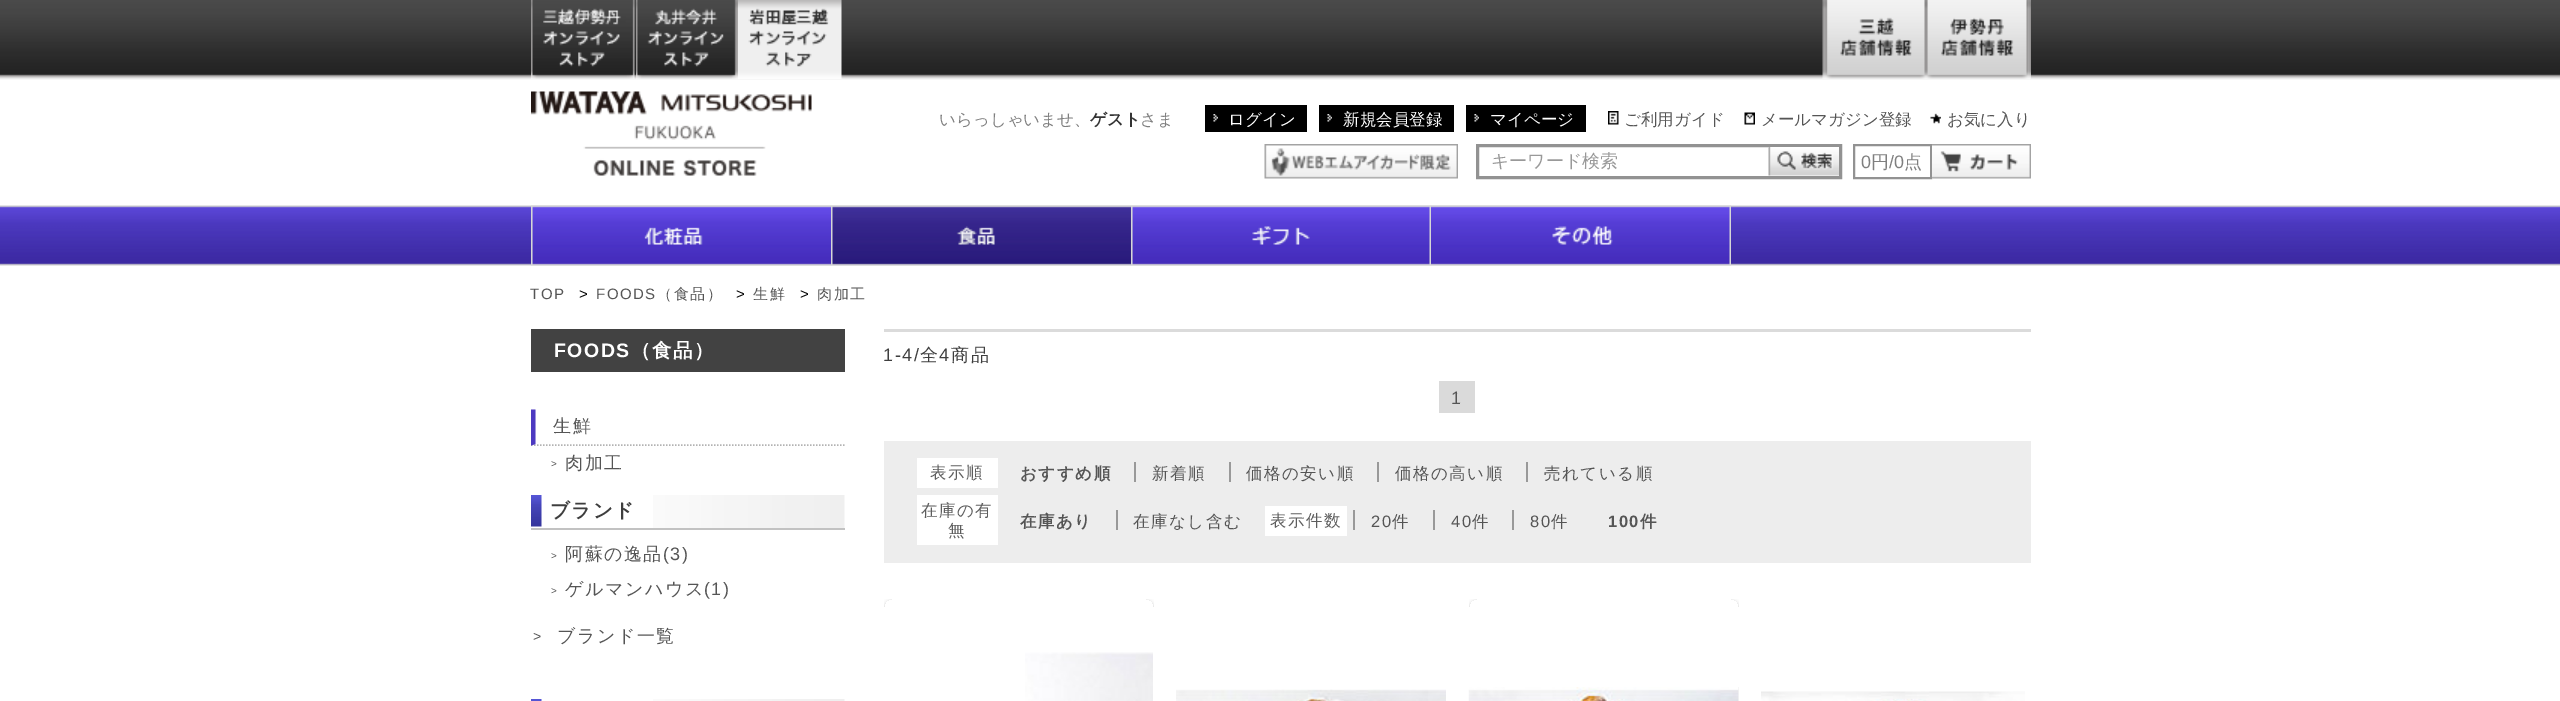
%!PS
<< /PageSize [2560 701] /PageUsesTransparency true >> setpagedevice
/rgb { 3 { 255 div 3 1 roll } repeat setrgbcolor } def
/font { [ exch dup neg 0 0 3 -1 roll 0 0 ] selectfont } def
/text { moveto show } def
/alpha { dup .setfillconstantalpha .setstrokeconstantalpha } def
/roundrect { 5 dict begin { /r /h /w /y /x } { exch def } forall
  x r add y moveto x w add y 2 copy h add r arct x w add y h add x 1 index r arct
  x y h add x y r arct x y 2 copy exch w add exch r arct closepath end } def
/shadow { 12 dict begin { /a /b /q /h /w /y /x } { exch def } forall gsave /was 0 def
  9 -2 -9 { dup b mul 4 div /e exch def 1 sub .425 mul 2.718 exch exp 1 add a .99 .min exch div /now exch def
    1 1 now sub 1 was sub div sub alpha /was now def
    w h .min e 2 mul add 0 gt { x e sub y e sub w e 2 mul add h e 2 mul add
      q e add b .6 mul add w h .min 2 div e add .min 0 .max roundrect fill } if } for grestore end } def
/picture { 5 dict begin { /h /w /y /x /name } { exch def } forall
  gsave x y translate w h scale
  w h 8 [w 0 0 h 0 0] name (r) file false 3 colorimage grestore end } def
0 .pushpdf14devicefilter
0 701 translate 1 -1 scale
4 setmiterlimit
255 255 255 rgb
0 0 2560 701 rectfill
(img_01.rgb) 0 0 2560 80 picture
(img_02.rgb) 531 0 104 79 picture
(img_03.rgb) 636 0 102 79 picture
(img_04.rgb) 738 0 104 79 picture
(img_05.rgb) 1822 0 104 79 picture
(img_06.rgb) 1926 0 105 79 picture
(img_07.rgb) 531 91 281 85 picture
0 0 0 rgb
1205 105 102 27 rectfill
(img_08.rgb) 1213 114 5 8 picture
1319 105 135 27 rectfill
(img_09.rgb) 1327 114 5 8 picture
1466 105 120 27 rectfill
(img_09.rgb) 1474 114 5 8 picture
(img_10.rgb) 1608 111 11 14 picture
(img_11.rgb) 1744 112 11 13 picture
(img_12.rgb) 1930 113 11 11 picture
(img_13.rgb) 1264 144 194 35 picture
146 146 146 rgb
3 setlinewidth
1477.5 145.5 363 32 rectstroke
(img_14.rgb) 1768 147 71 29 picture
2 setlinewidth
1854 145 77 33 rectstroke
(img_15.rgb) 1932 144 99 35 picture
(img_16.rgb) 0 205 2560 61 picture
(img_17.rgb) 531 205 300 61 picture
(img_18.rgb) 831 205 300 61 picture
(img_19.rgb) 1131 205 300 61 picture
(img_20.rgb) 1431 205 300 61 picture
66 66 66 rgb
531 329 314 43 rectfill
219 219 219 rgb
884 329 1147 3 rectfill
218 218 218 rgb
1439 381 36 32 rectfill
237 237 237 rgb
884 441 1147 122 rectfill
255 255 255 rgb
917 458 81 30 rectfill
153 153 153 rgb
1134 462 2 20 rectfill
1229 462 2 20 rectfill
1377 462 2 20 rectfill
1526 462 2 20 rectfill
255 255 255 rgb
917 495 81 50 rectfill
153 153 153 rgb
1116 510 2 20 rectfill
255 255 255 rgb
1265 506 82 30 rectfill
153 153 153 rgb
1353 510 2 20 rectfill
1433 510 2 20 rectfill
1512 510 2 20 rectfill
gsave
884 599 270 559 rectclip
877 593 moveto 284 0 rlineto 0 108 rlineto -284 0 rlineto closepath 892 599 moveto 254 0 rlineto 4.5 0 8 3.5 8 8 rcurveto 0 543 rlineto 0 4.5 -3.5 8 -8 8 rcurveto -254 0 rlineto -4.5 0 -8 -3.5 -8 -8 rcurveto 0 -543 rlineto 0 -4.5 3.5 -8 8 -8 rcurveto closepath eoclip newpath
0 0 0 rgb
884 600 270 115 8 2 0.15 shadow
grestore
(img_21.rgb) 1025 652 128 49 picture
(img_22.rgb) 1176 689 270 12 picture
gsave
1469 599 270 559 rectclip
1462 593 moveto 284 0 rlineto 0 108 rlineto -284 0 rlineto closepath 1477 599 moveto 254 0 rlineto 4.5 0 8 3.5 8 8 rcurveto 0 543 rlineto 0 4.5 -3.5 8 -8 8 rcurveto -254 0 rlineto -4.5 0 -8 -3.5 -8 -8 rcurveto 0 -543 rlineto 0 -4.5 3.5 -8 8 -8 rcurveto closepath eoclip newpath
0 0 0 rgb
1469 600 270 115 8 2 0.15 shadow
grestore
(img_23.rgb) 1468 687 271 14 picture
(img_24.rgb) 1761 691 264 10 picture
179 179 179 rgb
1.5 setlinewidth
[1.5 1.5] 0 setdash
531 445 moveto 313.5 0 rlineto stroke
77 58 193 rgb
531 445.5 moveto 0 -36 rlineto 4.5 0 rlineto 0 34.5 rlineto closepath fill
(img_25.rgb) 653 495 192 33 picture
194 194 194 rgb
531 528 314 2 rectfill
(img_26.rgb) 531 495 11 32 picture
(img_27.rgb) 653 699 192 2 picture
(img_28.rgb) 531 699 11 2 picture
/WenQuanYiZenHei-Medium 16.5 font
127 127 127 rgb
(いらっしゃいませ、) 939 125 text
/WenQuanYiZenHei-Bold 16.5 font
51 51 51 rgb
(ゲスト) 1090 125 text
/WenQuanYiZenHei-Medium 16.5 font
127 127 127 rgb
(さま) 1140 125 text
255 255 255 rgb
(ログイン) 1228 125 text
(新規会員登録) 1343 125 text
(マイページ) 1490 125 text
85 85 85 rgb
(ご利用ガイド) 1624 125 text
(メールマガジン登録) 1761 125 text
(お気に入り) 1947 125 text
/WenQuanYiZenHei-Medium 18 font
153 153 153 rgb
(キーワード検索) 1491 167 text
/LiberationSans-Regular 18 font
127 127 127 rgb
(0) 1861 168 text
/WenQuanYiZenHei-Medium 18 font
(円) 1871 168 text
/LiberationSans-Regular 18 font
(/0) 1889 168 text
/WenQuanYiZenHei-Medium 18 font
(点) 1904 168 text
/LiberationSans-Regular 15 font
85 85 85 rgb
530 299 moveto 1.5 0 (TOP) ashow
0 0 0 rgb
579 299 moveto 1.5 0 (>) ashow
85 85 85 rgb
596 299 moveto 1.5 0 (FOODS) ashow
/WenQuanYiZenHei-Medium 15 font
657 299 moveto 1.5 0 (（食品）) ashow
/LiberationSans-Regular 15 font
0 0 0 rgb
736 299 moveto 1.5 0 (>) ashow
/WenQuanYiZenHei-Medium 15 font
85 85 85 rgb
753 299 moveto 1.5 0 (生鮮) ashow
/LiberationSans-Regular 15 font
0 0 0 rgb
800 299 moveto 1.5 0 (>) ashow
/WenQuanYiZenHei-Medium 15 font
85 85 85 rgb
817 299 moveto 1.5 0 (肉加工) ashow
/LiberationSans-Bold 19.5 font
255 255 255 rgb
554 357 moveto 1.5 0 (FOODS) ashow
/WenQuanYiZenHei-Bold 19.5 font
631 357 moveto 1.5 0 (（食品）) ashow
/LiberationSans-Regular 18 font
62 62 62 rgb
883 361 moveto 1.5 0 (1-4/) ashow
/WenQuanYiZenHei-Medium 18 font
920 361 moveto 1.5 0 (全) ashow
/LiberationSans-Regular 18 font
939 361 moveto 1.5 0 (4) ashow
/WenQuanYiZenHei-Medium 18 font
951 361 moveto 1.5 0 (商品) ashow
/LiberationSans-Regular 18 font
85 85 85 rgb
1451 404 moveto 1.5 0 (1) ashow
/WenQuanYiZenHei-Medium 16.5 font
93 93 93 rgb
930 478 moveto 1.5 0 (表示順) ashow
/WenQuanYiZenHei-Bold 16.5 font
85 85 85 rgb
1020 479 moveto 1.5 0 (おすすめ順) ashow
/WenQuanYiZenHei-Medium 16.5 font
1152 479 moveto 1.5 0 (新着順) ashow
1246 479 moveto 1.5 0 (価格の安い順) ashow
1395 479 moveto 1.5 0 (価格の高い順) ashow
1544 479 moveto 1.5 0 (売れている順) ashow
93 93 93 rgb
921 516 moveto 1.5 0 (在庫の有) ashow
948 536 moveto 1.5 0 (無) ashow
/WenQuanYiZenHei-Bold 16.5 font
85 85 85 rgb
1020 527 moveto 1.5 0 (在庫あり) ashow
/WenQuanYiZenHei-Medium 16.5 font
1133 527 moveto 1.5 0 (在庫なし含む) ashow
93 93 93 rgb
1270 526 moveto 1.5 0 (表示件数) ashow
/LiberationSans-Regular 16.5 font
85 85 85 rgb
1371 527 moveto 1.5 0 (20) ashow
/WenQuanYiZenHei-Medium 16.5 font
1392 527 moveto 1.5 0 (件) ashow
/LiberationSans-Regular 16.5 font
1451 527 moveto 1.5 0 (40) ashow
/WenQuanYiZenHei-Medium 16.5 font
1472 527 moveto 1.5 0 (件) ashow
/LiberationSans-Regular 16.5 font
1530 527 moveto 1.5 0 (80) ashow
/WenQuanYiZenHei-Medium 16.5 font
1551 527 moveto 1.5 0 (件) ashow
/LiberationSans-Bold 16.5 font
1608 527 moveto 1.5 0 (100) ashow
/WenQuanYiZenHei-Bold 16.5 font
1640 527 moveto 1.5 0 (件) ashow
/WenQuanYiZenHei-Medium 18 font
553 432 moveto 1.5 0 (生鮮) ashow
/LiberationSans-Regular 10 font
551 467 moveto 1.5 0 (>) ashow
/WenQuanYiZenHei-Medium 18 font
565 469 moveto 1.5 0 (肉加工) ashow
/WenQuanYiZenHei-Bold 19.5 font
62 62 62 rgb
550 517 moveto 1.5 0 (ブランド) ashow
/LiberationSans-Regular 10 font
85 85 85 rgb
551 559 moveto 1.5 0 (>) ashow
/WenQuanYiZenHei-Medium 18 font
565 560 moveto 1.5 0 (阿蘇の逸品) ashow
/LiberationSans-Regular 18 font
663 560 moveto 1.5 0 (\(3\)) ashow
/LiberationSans-Regular 10 font
551 594 moveto 1.5 0 (>) ashow
/WenQuanYiZenHei-Medium 18 font
565 595 moveto 1.5 0 (ゲルマンハウス) ashow
/LiberationSans-Regular 18 font
704 595 moveto 1.5 0 (\(1\)) ashow
/LiberationSans-Regular 14 font
533 641 moveto 1.5 0 (>) ashow
/WenQuanYiZenHei-Medium 18 font
557 642 moveto 1.5 0 (ブランド一覧) ashow
.poppdf14devicefilter showpage
